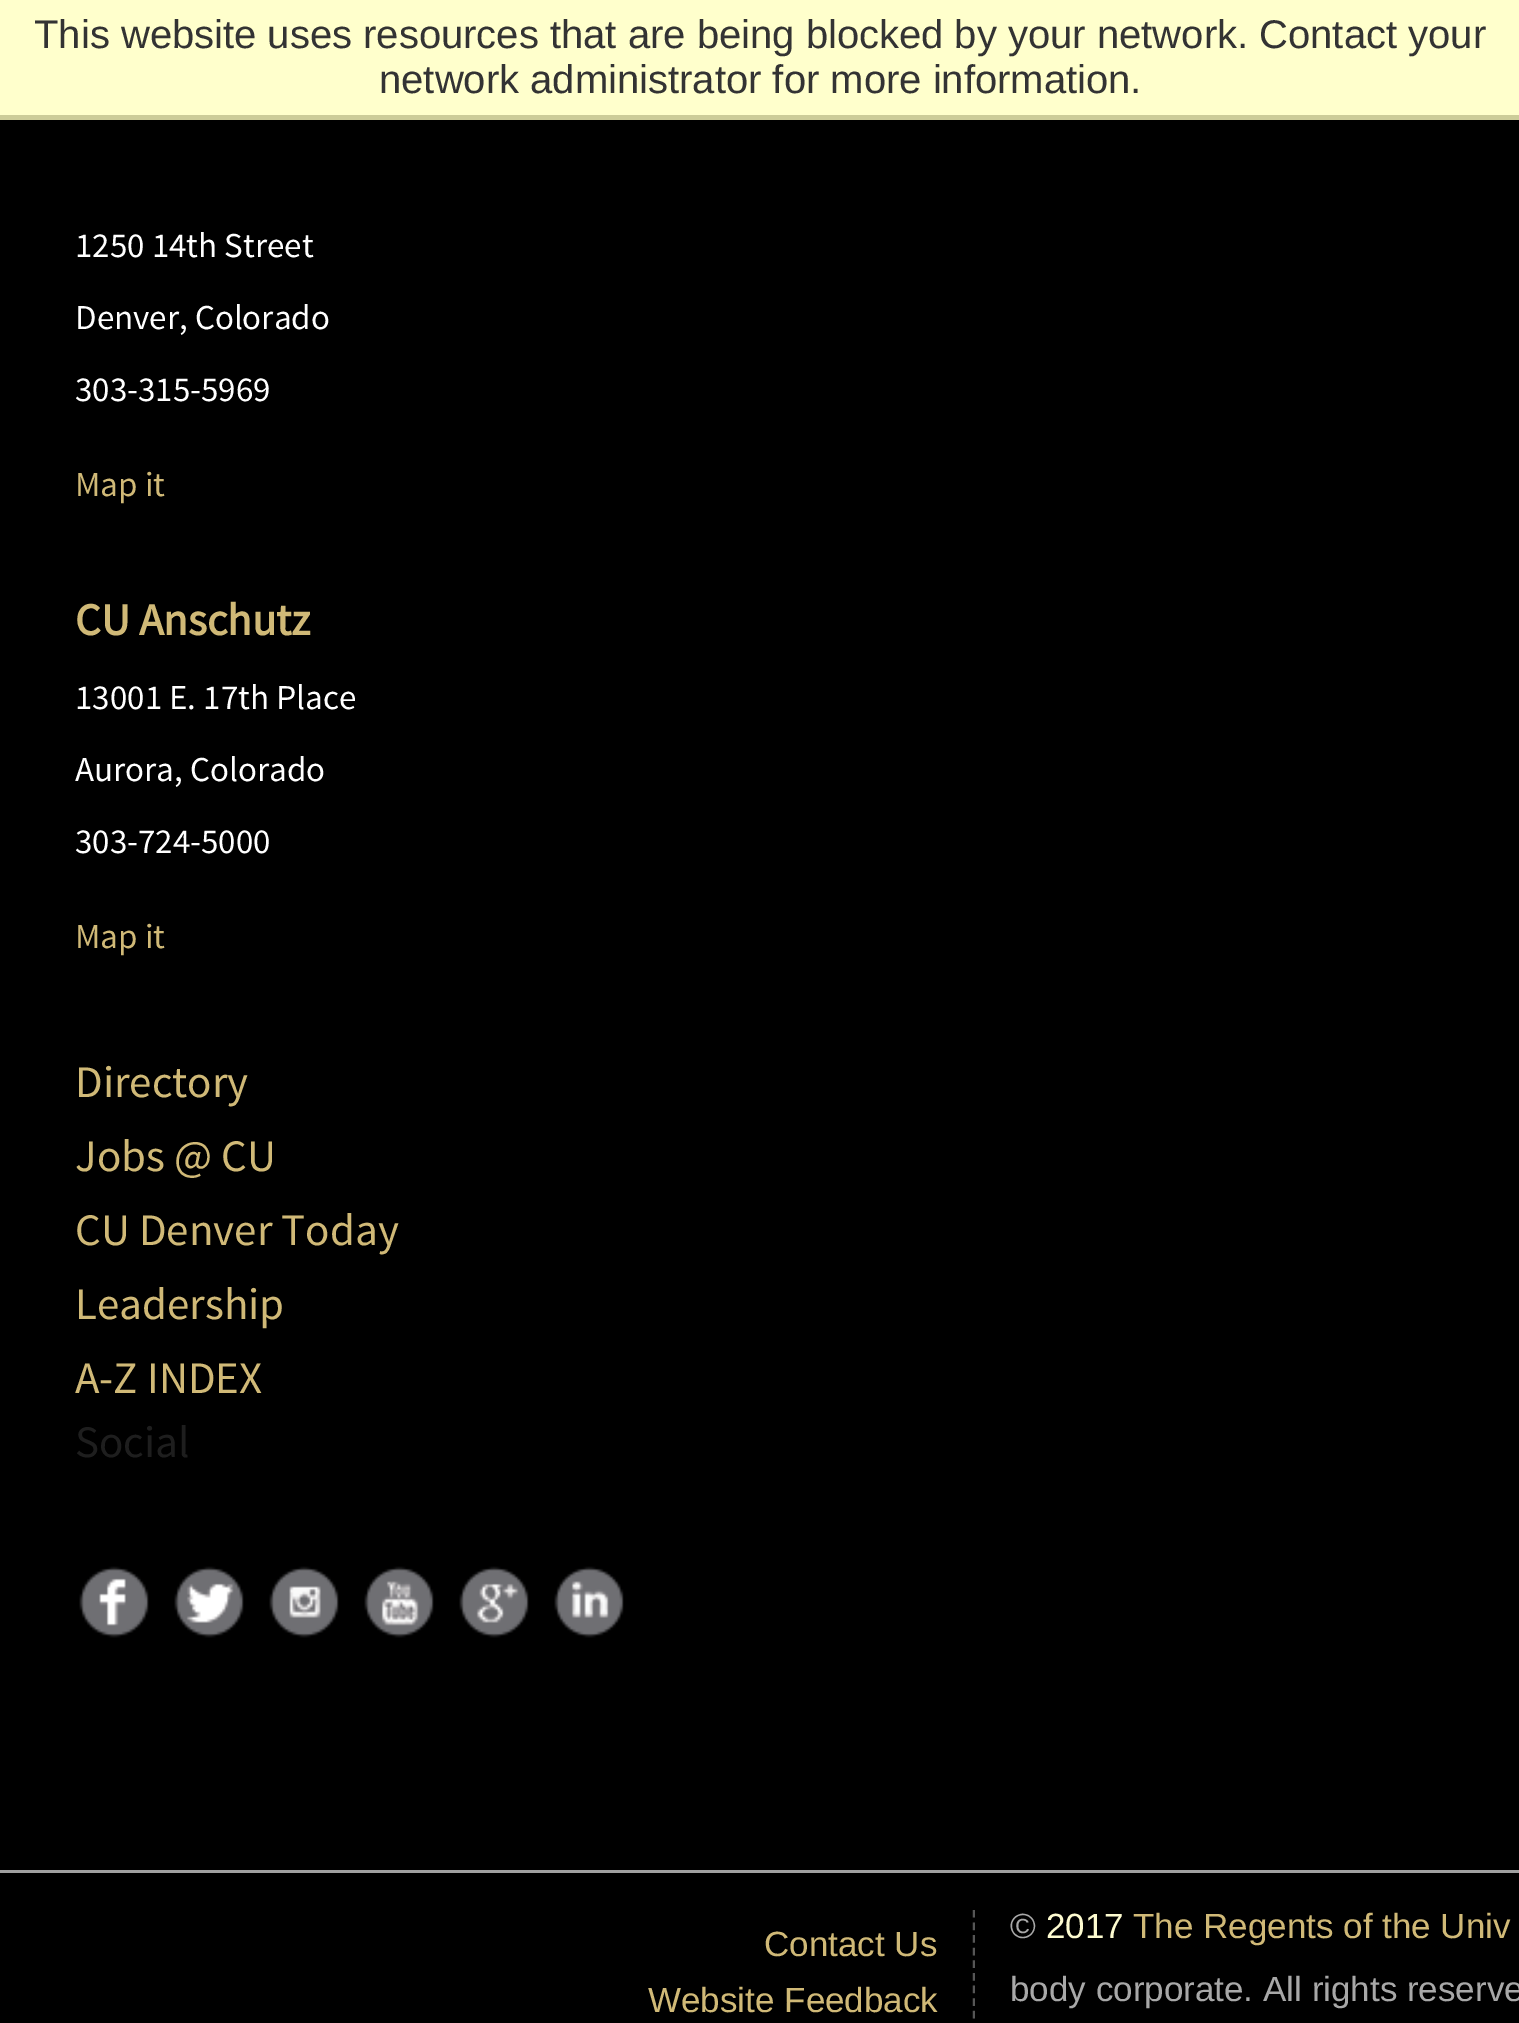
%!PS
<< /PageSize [1519 2023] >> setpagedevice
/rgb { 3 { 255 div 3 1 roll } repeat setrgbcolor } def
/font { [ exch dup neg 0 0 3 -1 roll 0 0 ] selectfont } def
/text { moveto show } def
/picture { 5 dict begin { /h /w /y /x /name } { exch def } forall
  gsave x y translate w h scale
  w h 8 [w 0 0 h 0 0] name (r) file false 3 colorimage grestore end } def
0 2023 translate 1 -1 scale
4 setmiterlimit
0 0 0 rgb
0 0 1519 2023 rectfill
255 255 204 rgb
0 0 1519 115 rectfill
204 204 153 rgb
0 115 1519 5 rectfill
160 160 160 rgb
0 1870 1519 3 rectfill
(img_01.rgb) 79 1566 70 72 picture
(img_02.rgb) 174 1566 70 72 picture
(img_03.rgb) 269 1566 70 72 picture
(img_04.rgb) 364 1566 70 72 picture
(img_05.rgb) 459 1566 70 72 picture
(img_06.rgb) 554 1566 70 72 picture
86 86 86 rgb
2.5 setlinewidth
[7.5 5.12] 0 setdash
974 1910 moveto 0 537.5 rlineto stroke
0 0 0 rgb
975 1910 1 109 rectfill
/LiberationSans-Regular 40 font
51 51 51 rgb
(This website uses resources that are being blocked by your network. Contact your) 34 48 text
(network administrator for more information.) 379 93 text
/SourceSansPro-Regular 35 font
255 255 255 rgb
(1250 14th Street) 75 257 text
(Denver, Colorado) 75 329 text
(303-315-5969) 75 401 text
208 185 119 rgb
(Map it) 75 496 text
/SourceSansPro-Bold 45 font
(CU Anschutz) 75 635 text
/SourceSansPro-Regular 35 font
255 255 255 rgb
(13001 E. 17th Place) 75 709 text
(Aurora, Colorado) 75 781 text
(303-724-5000) 75 853 text
208 185 119 rgb
(Map it) 75 948 text
/SourceSansPro-Regular 45 font
(Directory) 75 1097 text
(Jobs @ CU) 75 1171 text
(CU Denver Today) 75 1245 text
(Leadership) 75 1319 text
(A-Z INDEX) 75 1393 text
30 30 30 rgb
(Social) 75 1457 text
/LiberationSans-Regular 35 font
208 185 119 rgb
(Contact Us) 764 1956 text
(Website Feedback) 648 2012 text
168 168 168 rgb
(©) 1010 1938 text
253 251 208 rgb
(2017) 1046 1938 text
208 185 119 rgb
(The Regents of the Univ) 1133 1938 text
168 168 168 rgb
(body corporate. All rights reserve) 1010 2001 text
showpage
